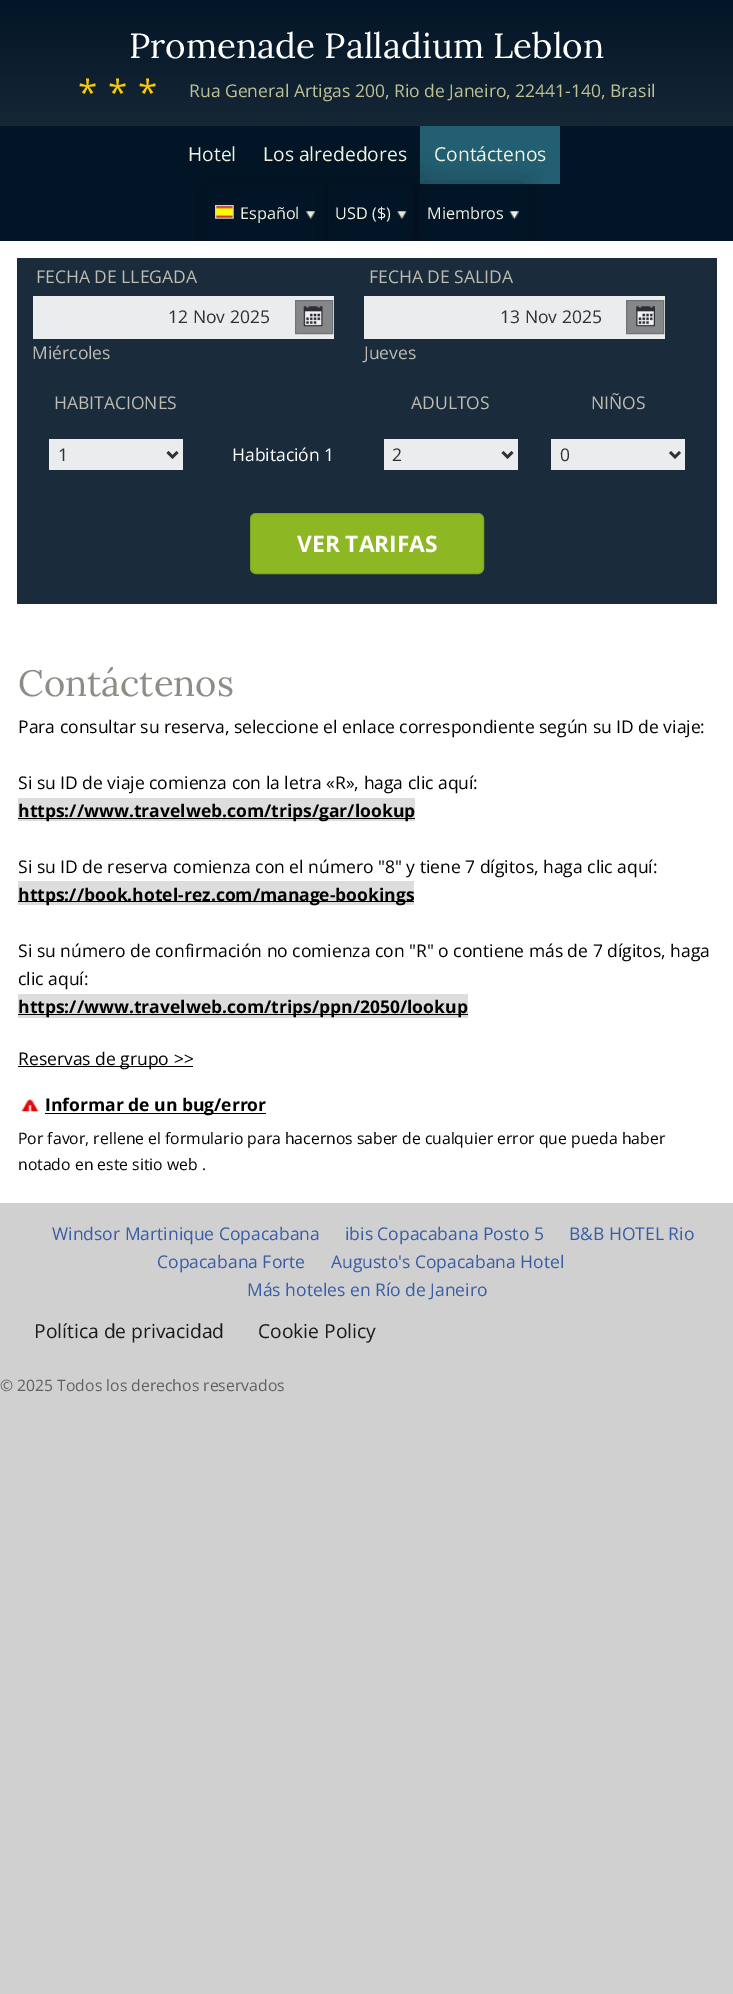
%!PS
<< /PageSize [733 1994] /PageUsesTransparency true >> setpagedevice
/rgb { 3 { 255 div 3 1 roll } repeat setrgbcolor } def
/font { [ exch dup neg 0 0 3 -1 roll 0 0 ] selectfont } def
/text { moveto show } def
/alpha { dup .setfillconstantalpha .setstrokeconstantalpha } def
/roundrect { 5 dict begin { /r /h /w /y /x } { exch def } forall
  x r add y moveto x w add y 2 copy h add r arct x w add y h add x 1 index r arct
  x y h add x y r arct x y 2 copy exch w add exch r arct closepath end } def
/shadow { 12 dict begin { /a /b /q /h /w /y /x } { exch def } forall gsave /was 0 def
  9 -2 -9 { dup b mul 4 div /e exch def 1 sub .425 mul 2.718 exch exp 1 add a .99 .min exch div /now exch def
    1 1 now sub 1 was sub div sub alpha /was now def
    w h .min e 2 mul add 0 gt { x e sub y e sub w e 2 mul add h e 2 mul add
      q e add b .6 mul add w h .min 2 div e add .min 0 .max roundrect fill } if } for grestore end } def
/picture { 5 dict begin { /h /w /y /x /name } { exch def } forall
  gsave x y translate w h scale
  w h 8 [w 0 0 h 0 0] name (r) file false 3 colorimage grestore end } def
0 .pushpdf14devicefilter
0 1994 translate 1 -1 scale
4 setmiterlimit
208 208 208 rgb
0 0 733 1994 rectfill
gsave 0 0 moveto 733 0 rlineto 0 126 rlineto -733 0 rlineto closepath clip newpath
<< /ShadingType 2 /ColorSpace /DeviceRGB /Coords [367 0 367 126] /Extend [true true] /Function << /FunctionType 2 /Domain [0 1] /C0 [0.008 0.082 0.149] /C1 [0.086 0.153 0.212] /N 1 >> >> shfill grestore
2 21 38 rgb
0 126 733 115 rectfill
34 95 114 rgb
420 126 140 58 rectfill
0 0 0 rgb
208 184 115 57 0 15 0.27 shadow
2 21 38 rgb
208 184 115 57 rectfill
(img_01.rgb) 215 205 19 14 picture
(img_02.rgb) 306 211 9 8 picture
gsave
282 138 moveto 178 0 rlineto 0 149 rlineto -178 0 rlineto closepath 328 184 moveto 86 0 rlineto 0 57 rlineto -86 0 rlineto closepath eoclip newpath
0 0 0 rgb
328 184 86 57 0 15 0.27 shadow
grestore
0.9 alpha
328 196 3 33 rectfill
1 alpha
(img_03.rgb) 397 211 10 8 picture
gsave
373 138 moveto 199 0 rlineto 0 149 rlineto -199 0 rlineto closepath 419 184 moveto 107 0 rlineto 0 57 rlineto -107 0 rlineto closepath eoclip newpath
0 0 0 rgb
419 184 107 57 0 15 0.27 shadow
grestore
0.9 alpha
419 196 3 33 rectfill
1 alpha
(img_04.rgb) 510 211 9 8 picture
255 255 255 rgb
0 241 733 962 rectfill
26 44 59 rgb
17 258 700 346 rectfill
235 236 237 rgb
33 296 301 43 rectfill
134 135 136 rgb
296 301 36 32 rectfill
(img_05.rgb) 303 306 20 21 picture
110 116 122 rgb
295.5 300.5 37 33 rectstroke
235 236 237 rgb
364 296 301 43 rectfill
134 135 136 rgb
627 301 36 32 rectfill
(img_06.rgb) 636 306 19 21 picture
110 116 122 rgb
626.5 300.5 37 33 rectstroke
235 236 237 rgb
49 439 134 31 rectfill
42 50 53 rgb
2.5 setlinewidth
167.5 452 moveto 5 5 rlineto 5 -5 rlineto stroke
235 236 237 rgb
384 439 134 31 rectfill
42 50 53 rgb
502.5 452 moveto 5 5 rlineto 5 -5 rlineto stroke
235 236 237 rgb
551 439 134 31 rectfill
42 50 53 rgb
670 452 moveto 5 5 rlineto 5 -5 rlineto stroke
142 183 36 rgb
250.5 513.5 233 60 5.5 roundrect gsave fill grestore
128 165 30 rgb
1 setlinewidth
stroke
221 221 221 rgb
18 798 397 23 rectfill
0 0 0 rgb
18 818 397 1 rectfill
221 221 221 rgb
18 881 396 24 rectfill
0 0 0 rgb
18 901 396 1 rectfill
221 221 221 rgb
18 994 450 24 rectfill
0 0 0 rgb
18 1014 450 1 rectfill
18 1066 175 1 rectfill
(img_07.rgb) 21 1098 18 14 picture
45 1113 221 1 rectfill
/Lora-Regular 35 font
255 255 255 rgb
(Promenade Palladium Leblon) 129 58 text
/OpenSans-Regular 35 font
249 202 9 rgb
78 105 moveto 10.5 0 (***) ashow
/OpenSans-Regular 17.5 font
191 194 149 rgb
(Rua General Artigas 200, Rio de Janeiro, 22441-140, Brasil) 189 97 text
/OpenSans-Regular 19.25 font
242 242 227 rgb
(Hotel) 188 161 text
(Los alrededores) 263 161 text
(Contáctenos) 434 161 text
/OpenSans-Regular 16.25 font
(Español) 240 219 text
(USD \($\)) 335 219 text
(Miembros) 427 219 text
/OpenSans-Regular 17.5 font
190 188 178 rgb
(FECHA DE LLEGADA) 36 283 text
42 50 53 rgb
(12 Nov 2025) 168 323 text
190 188 178 rgb
(Miércoles) 32 359 text
(FECHA DE SALIDA) 369 283 text
42 50 53 rgb
(13 Nov 2025) 500 323 text
190 188 178 rgb
(Jueves) 364 359 text
(HABITACIONES) 54 409 text
(ADULTOS) 411 409 text
(NIÑOS) 591 409 text
42 50 53 rgb
(1) 58 461 text
255 255 255 rgb
(Habitación 1) 232 461 text
42 50 53 rgb
(2) 392 461 text
(0) 560 461 text
/OpenSans-Bold 22.75 font
255 255 255 rgb
(VER TARIFAS) 297 552 text
/Lora-Regular 36.5 font
142 140 134 rgb
(Contáctenos) 18 696 text
/OpenSans-Regular 17.5 font
0 0 0 rgb
(Para consultar su reserva, seleccione el enlace correspondiente según su ID de viaje:) 18 733 text
(Si su ID de viaje comienza con la letra «R», haga clic aquí:) 18 789 text
/OpenSans-Bold 17.5 font
(https://www.travelweb.com/trips/gar/lookup) 18 817 text
/OpenSans-Regular 17.5 font
(Si su ID de reserva comienza con el número "8" y tiene 7 dígitos, haga clic aquí:) 18 873 text
/OpenSans-Bold 17.5 font
(https://book.hotel-rez.com/manage-bookings) 18 901 text
/OpenSans-Regular 17.5 font
(Si su número de confirmación no comienza con "R" o contiene más de 7 dígitos, haga) 18 957 text
(clic aquí:) 18 985 text
/OpenSans-Bold 17.5 font
(https://www.travelweb.com/trips/ppn/2050/lookup) 18 1013 text
/OpenSans-Regular 17.5 font
(Reservas de grupo >>) 18 1065 text
/OpenSans-Bold 17.5 font
(Informar de un bug/error) 45 1111 text
/OpenSans-Regular 15.75 font
(Por favor, rellene el formulario para hacernos saber de cualquier error que pueda haber) 18 1144 text
(notado en este sitio web .) 18 1170 text
/OpenSans-Regular 17.5 font
56 93 166 rgb
(Windsor Martinique Copacabana) 52 1240 text
(ibis Copacabana Posto 5) 345 1240 text
(B&B HOTEL Rio) 569 1240 text
(Copacabana Forte) 157 1268 text
(Augusto's Copacabana Hotel) 331 1268 text
(Más hoteles en Río de Janeiro) 247 1296 text
/OpenSans-Regular 19.25 font
26 26 24 rgb
(Política de privacidad) 34 1338 text
(Cookie Policy) 258 1338 text
/OpenSans-Regular 15.75 font
98 96 94 rgb
(© 2025 Todos los derechos reservados) 0 1391 text
.poppdf14devicefilter showpage
